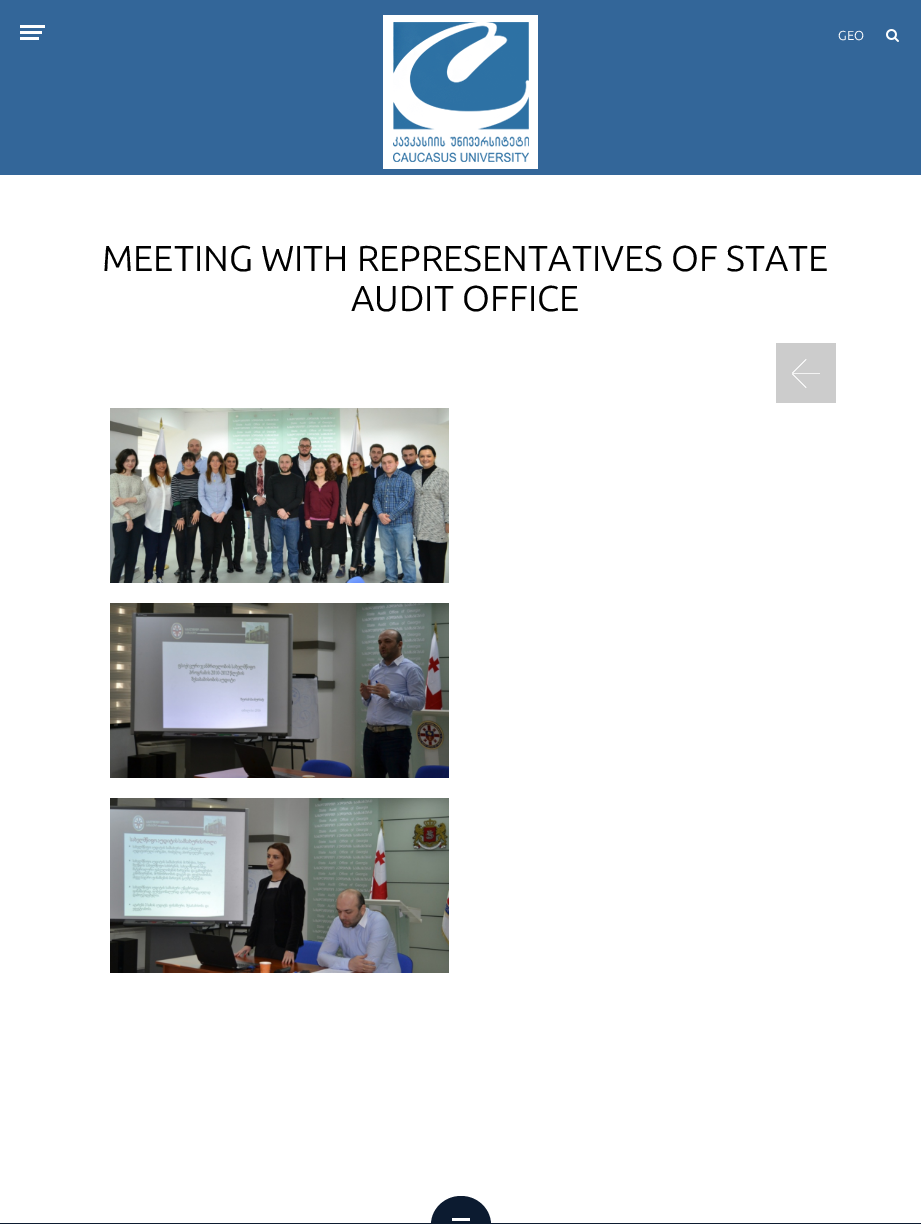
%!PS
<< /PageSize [921 1224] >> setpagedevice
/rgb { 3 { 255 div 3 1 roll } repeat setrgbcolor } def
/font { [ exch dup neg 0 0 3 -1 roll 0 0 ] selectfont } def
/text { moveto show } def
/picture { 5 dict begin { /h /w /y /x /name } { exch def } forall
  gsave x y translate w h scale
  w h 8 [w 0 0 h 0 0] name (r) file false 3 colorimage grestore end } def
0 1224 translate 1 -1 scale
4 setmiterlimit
51 102 153 rgb
0 0 921 1224 rectfill
255 255 255 rgb
20 25 25 3 rectfill
20 31 22 3 rectfill
20 37 19 3 rectfill
383 15 155 154 rectfill
(img_01.rgb) 393 22 136 140 picture
(img_02.rgb) 886 29 13 13 picture
0 175 921 1048 rectfill
204 204 204 rgb
776 343 60 60 rectfill
(img_03.rgb) 792 359 28 29 picture
(img_04.rgb) 110 408 339 175 picture
(img_05.rgb) 110 603 339 175 picture
(img_06.rgb) 110 798 339 175 picture
12 27 48 rgb
0 1223 921 1 rectfill
461 1196 moveto 16.5 0 30 13 30 29 rcurveto 0 16 -13.5 29 -30 29 rcurveto -16.5 0 -30 -13 -30 -29 rcurveto 0 -16 13.5 -29 30 -29 rcurveto closepath fill
255 255 255 rgb
452 1218 18 3 rectfill
/Ubuntu-Regular 13 font
(GEO) 838 40 text
/Ubuntu-Regular 36 font
0 0 0 rgb
(MEETING WITH REPRESENTATIVES OF STATE) 102 271 text
(AUDIT OFFICE) 351 311 text
showpage
